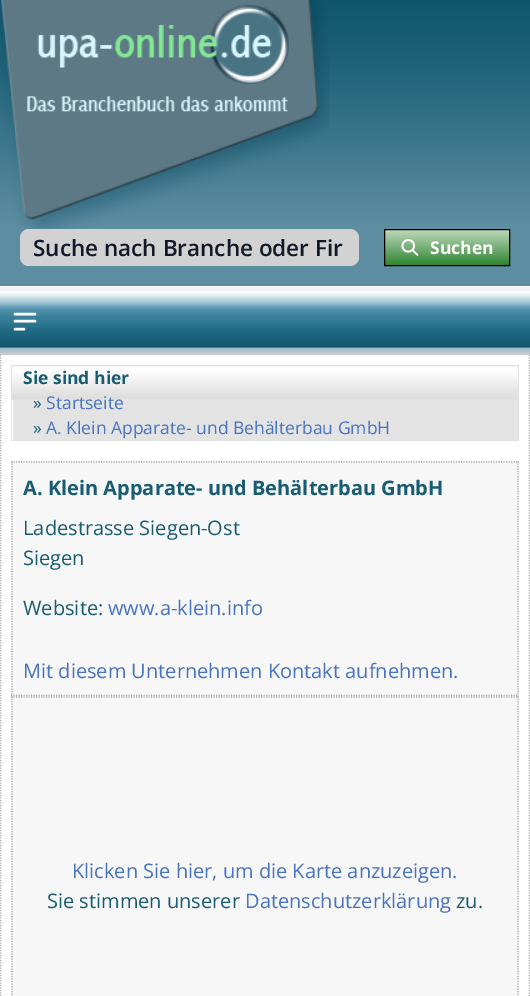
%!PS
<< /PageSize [530 996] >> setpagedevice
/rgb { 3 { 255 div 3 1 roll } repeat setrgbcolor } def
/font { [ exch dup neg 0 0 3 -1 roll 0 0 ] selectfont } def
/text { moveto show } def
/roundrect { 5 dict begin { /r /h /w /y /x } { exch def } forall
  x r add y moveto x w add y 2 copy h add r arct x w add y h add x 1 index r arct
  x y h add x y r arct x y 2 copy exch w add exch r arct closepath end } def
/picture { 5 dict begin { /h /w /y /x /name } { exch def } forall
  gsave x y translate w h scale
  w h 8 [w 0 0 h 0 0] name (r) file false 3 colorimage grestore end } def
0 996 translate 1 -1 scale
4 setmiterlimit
255 255 255 rgb
0 0 530 996 rectfill
(img_01.rgb) 0 0 530 229 picture
(img_02.rgb) 1 0 328 229 picture
93 141 160 rgb
0 229 530 57 rectfill
210 210 210 rgb
20 229 339 37 9 roundrect fill
gsave 385 230 moveto 124 0 rlineto 0 35 rlineto -124 0 rlineto closepath clip newpath
<< /ShadingType 2 /ColorSpace /DeviceRGB /Coords [447 230 447 265] /Extend [true true] /Function << /FunctionType 2 /Domain [0 1] /C0 [0.745 0.851 0.745] /C1 [0.184 0.522 0.192] /N 1 >> >> shfill grestore
0 0 0 rgb
384.5 229.5 125 36 rectstroke
255 255 255 rgb
1.7 setlinewidth
1 setlinecap
1 setlinejoin
417.5 255 moveto -5 -5 rlineto 414 246 moveto 0 7.5 -11.5 7.5 -11.5 0 rcurveto 0 -8 11.5 -8 11.5 0 rcurveto closepath stroke
(img_03.rgb) 0 286 530 69 picture
(img_04.rgb) 0 291 530 57 picture
2.5 setlinewidth
15 314 moveto 20 0 rlineto 15 321 moveto 20 0 rlineto 15 329 moveto 9 0 rlineto stroke
173 173 173 rgb
1.2 setlinewidth
0 setlinecap
0 setlinejoin
[1.25 1.25] 0 setdash
529.5 355 moveto 0 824 rlineto stroke
0.5 355 moveto 0 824 rlineto stroke
227 227 227 rgb
13 400 505 40 rectfill
(img_05.rgb) 12 365 506 35 picture
226 226 226 rgb
518 365 1 76 rectfill
11 440 508 1 rectfill
11 365 1 76 rectfill
247 247 247 rgb
11 461 508 235 rectfill
173 173 173 rgb
11 462 moveto 508 0 rlineto stroke
518 461 moveto 0 235 rlineto stroke
11 695.5 moveto 508 0 rlineto stroke
12 461 moveto 0 235 rlineto stroke
247 247 247 rgb
11 696 508 300 rectfill
173 173 173 rgb
11 697 moveto 508 0 rlineto stroke
518 696 moveto 0 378 rlineto stroke
12 696 moveto 0 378 rlineto stroke
/OpenSans-SemiBold 22.5 font
17 24 39 rgb
(Suche nach Branche oder Fir) 33 256 text
/OpenSans-Bold 17.5 font
255 255 255 rgb
(Suchen) 430 254 text
23 92 115 rgb
(Sie sind hier) 23 384 text
/OpenSans-Regular 17.5 font
(») 33 409 text
71 115 191 rgb
(Startseite) 46 409 text
23 92 115 rgb
(») 33 434 text
71 115 191 rgb
(A. Klein Apparate- und Behälterbau GmbH) 46 434 text
/OpenSans-Bold 20 font
23 92 115 rgb
(A. Klein Apparate- und Behälterbau GmbH) 23 495 text
/OpenSans-Regular 20 font
(Ladestrasse Siegen-Ost) 23 535 text
(Siegen) 23 565 text
(Website:) 23 615 text
71 115 191 rgb
(www.a-klein.info) 108 615 text
(Mit diesem Unternehmen Kontakt aufnehmen.) 23 678 text
(Klicken Sie hier, um die Karte anzuzeigen.) 72 878 text
23 92 115 rgb
(Sie stimmen unserer) 47 908 text
71 115 191 rgb
(Datenschutzerklärung) 245 908 text
23 92 115 rgb
(zu.) 456 908 text
showpage
